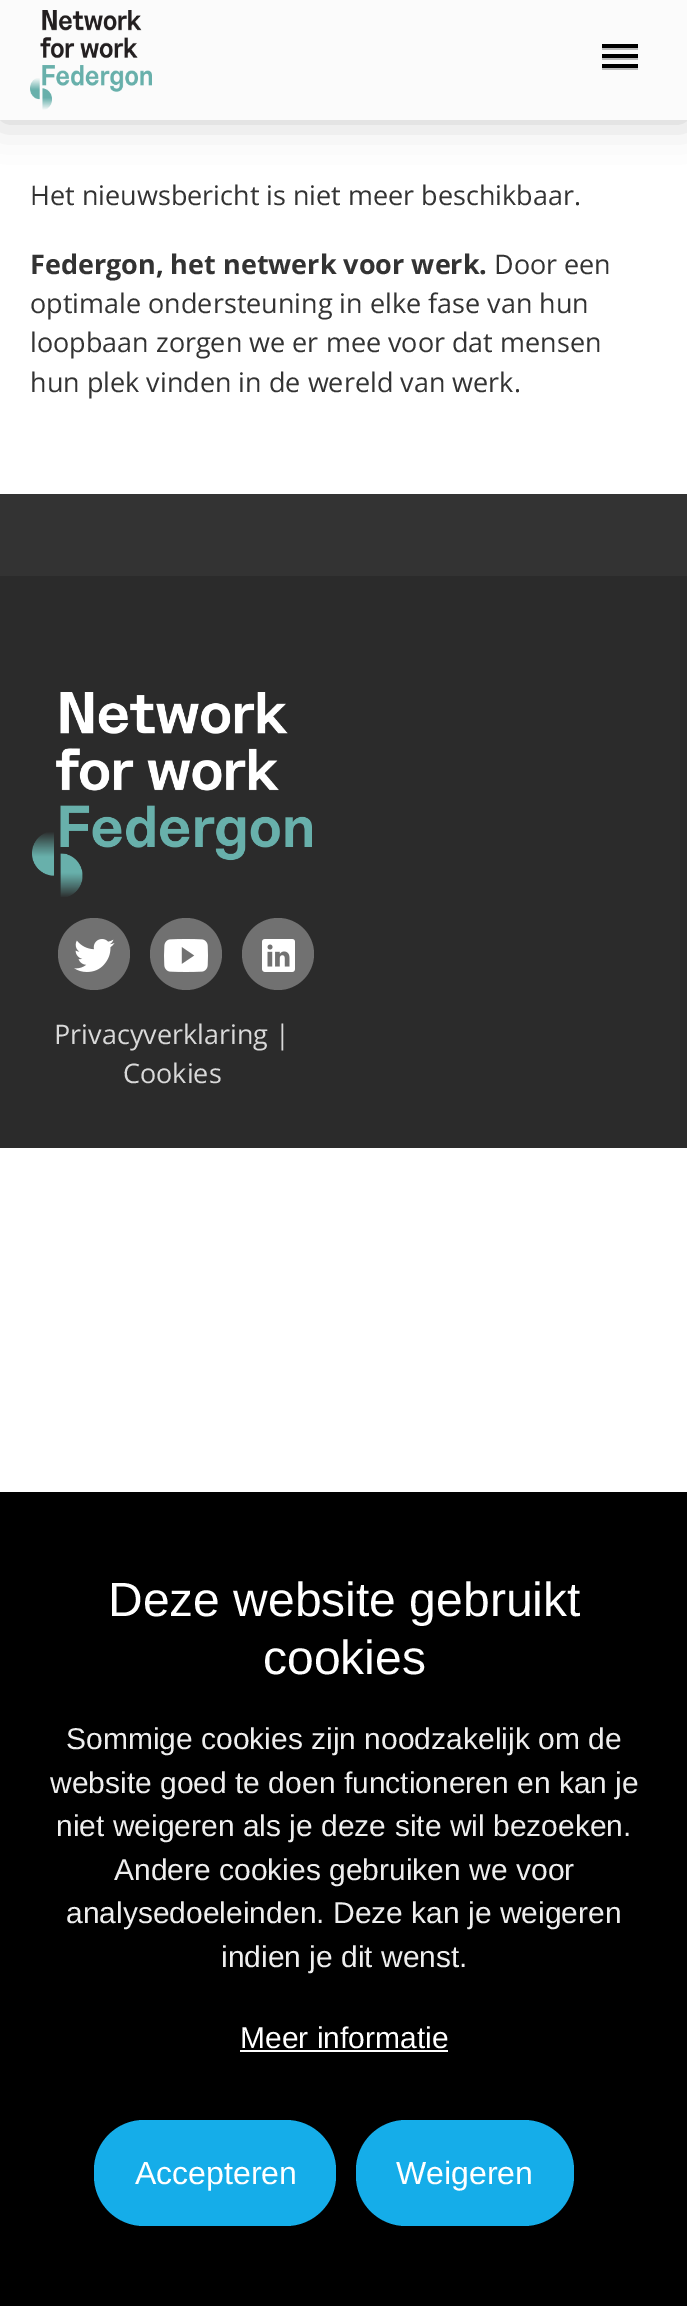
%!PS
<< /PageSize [687 2306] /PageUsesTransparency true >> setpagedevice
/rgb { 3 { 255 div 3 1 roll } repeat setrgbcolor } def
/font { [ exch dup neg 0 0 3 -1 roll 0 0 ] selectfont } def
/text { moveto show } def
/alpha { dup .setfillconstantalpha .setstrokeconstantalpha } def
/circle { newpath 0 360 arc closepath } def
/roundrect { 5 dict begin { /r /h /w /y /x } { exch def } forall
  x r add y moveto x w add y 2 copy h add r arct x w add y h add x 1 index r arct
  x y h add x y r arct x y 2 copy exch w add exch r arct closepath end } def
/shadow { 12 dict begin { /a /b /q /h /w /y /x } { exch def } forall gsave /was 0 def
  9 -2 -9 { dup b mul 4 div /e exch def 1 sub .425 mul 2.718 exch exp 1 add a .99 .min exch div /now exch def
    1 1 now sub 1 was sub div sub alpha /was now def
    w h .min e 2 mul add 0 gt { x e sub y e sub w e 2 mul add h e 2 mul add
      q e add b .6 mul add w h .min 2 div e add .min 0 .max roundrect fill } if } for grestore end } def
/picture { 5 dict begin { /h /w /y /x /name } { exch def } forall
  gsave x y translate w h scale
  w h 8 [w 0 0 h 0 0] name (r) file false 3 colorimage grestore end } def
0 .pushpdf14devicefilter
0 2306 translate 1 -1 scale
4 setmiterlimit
255 255 255 rgb
0 0 687 2306 rectfill
175 175 175 rgb
0 0 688 120 0 20 0.7 shadow
251 251 251 rgb
0 0 687 120 rectfill
(img_01.rgb) 30 10 122 100 picture
188 188 188 rgb
602 48 36 2 rectfill
0 0 0 rgb
602 44 36 4 rectfill
188 188 188 rgb
602 58 36 2 rectfill
0 0 0 rgb
602 54 36 4 rectfill
188 188 188 rgb
602 68 36 2 rectfill
0 0 0 rgb
602 64 36 4 rectfill
51 51 51 rgb
0 494 687 82 rectfill
43 43 43 rgb
0 576 687 572 rectfill
(img_02.rgb) 32 692 280 205 picture
113 113 113 rgb
94 954 36 circle fill
(img_03.rgb) 74 939 41 33 picture
186 954 36 circle fill
(img_04.rgb) 164 939 44 33 picture
278 954 36 circle fill
(img_05.rgb) 262 939 33 33 picture
0 0 0 rgb
0 1492 687 814 rectfill
255 255 255 rgb
240 2050 208 2 rectfill
21 173 233 rgb
94 2120 242 106 50 roundrect fill
356 2120 218 106 50 roundrect fill
/OpenSans-Regular 27 font
51 51 51 rgb
(Het nieuwsbericht is niet meer beschikbaar.) 30 205 text
/OpenSans-Bold 27 font
(Federgon, het netwerk voor werk.) 30 274 text
/OpenSans-Regular 27 font
(Door een) 494 274 text
(optimale ondersteuning in elke fase van hun) 30 313 text
(loopbaan zorgen we er mee voor dat mensen) 30 352 text
(hun plek vinden in de wereld van werk.) 30 392 text
217 217 217 rgb
(Privacyverklaring |) 54 1044 text
(Cookies) 123 1083 text
/LiberationSans-Regular 48 font
255 255 255 rgb
(Deze website gebruikt) 108 1616 text
(cookies) 263 1674 text
/LiberationSans-Regular 30 font
238 238 238 rgb
(Sommige cookies zijn noodzakelijk om de) 66 1749 text
(website goed te doen functioneren en kan je) 50 1793 text
(niet weigeren als je deze site wil bezoeken.) 56 1836 text
(Andere cookies gebruiken we voor) 114 1880 text
(analysedoeleinden. Deze kan je weigeren) 66 1923 text
(indien je dit wenst.) 221 1967 text
255 255 255 rgb
(Meer informatie) 240 2048 text
/LiberationSans-Regular 32 font
(Accepteren) 135 2184 text
(Weigeren) 396 2184 text
.poppdf14devicefilter showpage
